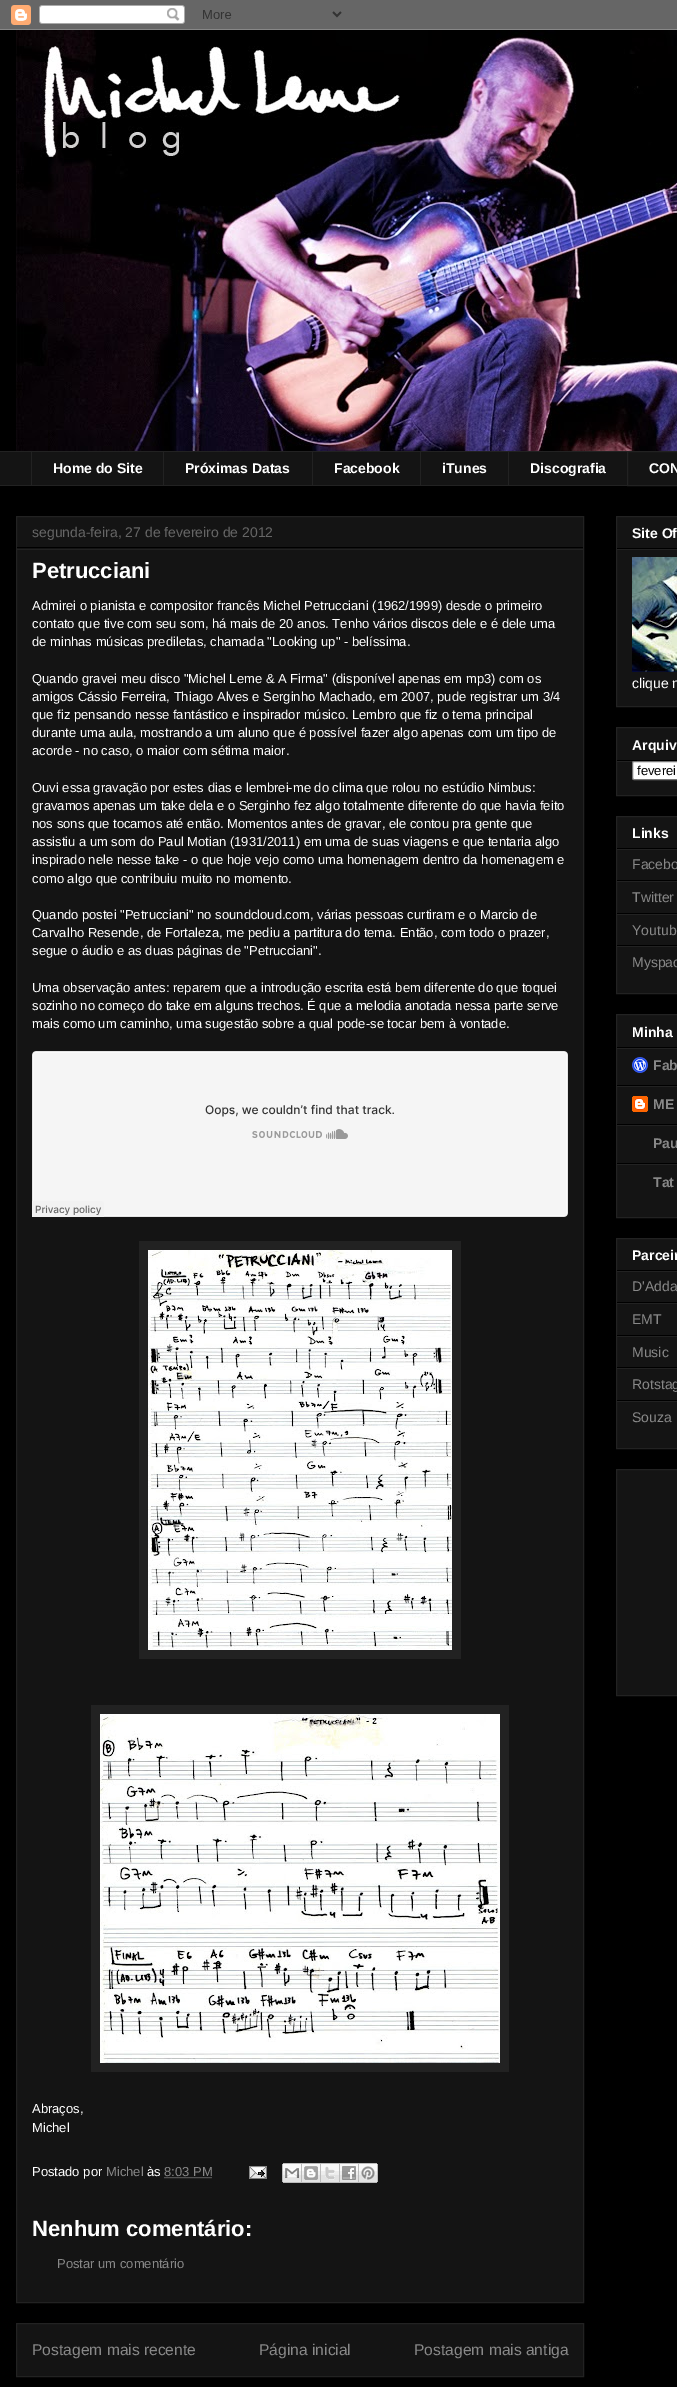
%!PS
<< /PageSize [677 2387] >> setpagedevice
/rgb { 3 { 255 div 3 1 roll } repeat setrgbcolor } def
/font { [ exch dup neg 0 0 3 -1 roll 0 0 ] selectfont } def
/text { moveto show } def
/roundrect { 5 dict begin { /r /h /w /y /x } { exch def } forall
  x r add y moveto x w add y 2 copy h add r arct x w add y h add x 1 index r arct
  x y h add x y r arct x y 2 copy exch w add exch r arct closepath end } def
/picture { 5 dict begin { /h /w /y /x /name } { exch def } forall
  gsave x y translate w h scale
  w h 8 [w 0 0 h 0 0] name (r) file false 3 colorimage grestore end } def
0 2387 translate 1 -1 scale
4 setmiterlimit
0 0 0 rgb
0 0 677 2387 rectfill
(img_01.rgb) 0 0 677 30 picture
(img_02.rgb) 16 30 661 421 picture
20 20 20 rgb
0 452 677 33 rectfill
34 34 34 rgb
0 451 627 1 rectfill
31 451 1 35 rectfill
163 451 1 35 rectfill
312 451 1 35 rectfill
420 451 1 35 rectfill
508 451 1 35 rectfill
627.5 451.5 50 34 rectstroke
0 485 627 1 rectfill
20 20 20 rgb
16.5 516.5 moveto 567 0 rlineto 0 1786 rlineto -567 0 rlineto closepath gsave fill grestore
34 34 34 rgb
stroke
0 0 0 rgb
17 547 566 1 rectfill
34 34 34 rgb
17 549 566 1 rectfill
(img_03.rgb) 32 1051 536 166 picture
139 1241 322 418 rectfill
(img_04.rgb) 148 1250 304 400 picture
91 1705 418 367 rectfill
(img_05.rgb) 100 1714 400 349 picture
136 136 136 rgb
[1 1] 0 setdash
164.5 2177.5 moveto 48 0 rlineto stroke
(img_06.rgb) 249 2166 18 13 picture
(img_07.rgb) 282 2163 20 20 picture
(img_08.rgb) 302 2163 19 20 picture
(img_09.rgb) 321 2163 19 20 picture
(img_10.rgb) 340 2163 19 20 picture
(img_11.rgb) 359 2163 19 20 picture
20 20 20 rgb
16.5 2323.5 moveto 567 0 rlineto 0 53 rlineto -567 0 rlineto closepath gsave fill grestore
34 34 34 rgb
[] 0 setdash
stroke
20 20 20 rgb
616.5 516.5 moveto 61 0 rlineto 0 190 rlineto -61 0 rlineto closepath gsave fill grestore
34 34 34 rgb
stroke
0 0 0 rgb
617 548 60 1 rectfill
34 34 34 rgb
617 549 60 1 rectfill
(img_12.rgb) 632 557 45 115 picture
20 20 20 rgb
616.5 727.5 moveto 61 0 rlineto 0 68 rlineto -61 0 rlineto closepath gsave fill grestore
34 34 34 rgb
stroke
0 0 0 rgb
617 760 60 1 rectfill
34 34 34 rgb
617 761 17 1 rectfill
255 255 255 rgb
632.5 761.5 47 18 1.5 roundrect gsave fill grestore
118 118 118 rgb
stroke
20 20 20 rgb
616.5 816.5 moveto 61 0 rlineto 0 177 rlineto -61 0 rlineto closepath gsave fill grestore
34 34 34 rgb
stroke
0 0 0 rgb
617 848 60 1 rectfill
34 34 34 rgb
617 849 60 1 rectfill
0 0 0 rgb
617 880 60 1 rectfill
34 34 34 rgb
617 881 60 1 rectfill
0 0 0 rgb
617 913 60 1 rectfill
34 34 34 rgb
617 914 60 1 rectfill
0 0 0 rgb
617 945 60 1 rectfill
34 34 34 rgb
617 946 60 1 rectfill
20 20 20 rgb
616.5 1014.5 moveto 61 0 rlineto 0 203 rlineto -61 0 rlineto closepath gsave fill grestore
34 34 34 rgb
stroke
0 0 0 rgb
617 1047 60 1 rectfill
34 34 34 rgb
617 1048 60 1 rectfill
0 0 0 rgb
617 1085 60 1 rectfill
(img_13.rgb) 632 1057 16 16 picture
34 34 34 rgb
617 1086 60 1 rectfill
0 0 0 rgb
617 1124 60 1 rectfill
(img_14.rgb) 632 1096 16 16 picture
34 34 34 rgb
617 1125 60 1 rectfill
0 0 0 rgb
617 1163 60 1 rectfill
34 34 34 rgb
617 1164 60 1 rectfill
20 20 20 rgb
616.5 1238.5 moveto 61 0 rlineto 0 210 rlineto -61 0 rlineto closepath gsave fill grestore
34 34 34 rgb
stroke
0 0 0 rgb
617 1270 60 1 rectfill
34 34 34 rgb
617 1271 60 1 rectfill
0 0 0 rgb
617 1302 60 1 rectfill
34 34 34 rgb
617 1303 60 1 rectfill
0 0 0 rgb
617 1335 60 1 rectfill
34 34 34 rgb
617 1336 60 1 rectfill
0 0 0 rgb
617 1367 60 1 rectfill
34 34 34 rgb
617 1368 60 1 rectfill
0 0 0 rgb
617 1400 60 1 rectfill
34 34 34 rgb
617 1401 60 1 rectfill
20 20 20 rgb
616.5 1469.5 moveto 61 0 rlineto 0 226 rlineto -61 0 rlineto closepath gsave fill grestore
34 34 34 rgb
stroke
/LiberationSans-Bold 14 font
255 255 255 rgb
(Home do Site) 53 473 text
(Próximas Datas) 185 473 text
(Facebook) 334 473 text
(iTunes) 442 473 text
(Discografia) 530 473 text
(CON) 649 473 text
/LiberationSans-Regular 14 font
102 102 102 rgb
(segunda-feira, 27 de fevereiro de 2012) 32 537 text
/LiberationSans-Bold 22 font
255 255 255 rgb
(Petrucciani) 32 578 text
/LiberationSans-Regular 13 font
(Admirei o pianista e compositor francês Michel Petrucciani \(1962/1999\) desde o primeiro) 32 610 text
(contato que tive com seu som, há mais de 20 anos. Tenho vários discos dele e é dele uma) 32 628 text
(de minhas músicas prediletas, chamada "Looking up" - belíssima.) 32 646 text
(Quando gravei meu disco "Michel Leme & A Firma" \(disponível apenas em mp3\) com os) 32 683 text
(amigos Cássio Ferreira, Thiago Alves e Serginho Machado, em 2007, pude registrar um 3/4) 32 701 text
(que fiz pensando nesse fantástico e inspirador músico. Lembro que fiz o tema principal) 32 719 text
(durante uma aula, mostrando a um aluno que é possível fazer algo apenas com um tipo de) 32 737 text
(acorde - no caso, o maior com sétima maior.) 32 755 text
(Ouvi essa gravação por estes dias e lembrei-me do clima que rolou no estúdio Nimbus:) 32 792 text
(gravamos apenas um take dela e o Serginho fez algo totalmente diferente do que havia feito) 32 810 text
(nos sons que tocamos até então. Momentos antes de gravar, ele contou pra gente que) 32 828 text
(assistiu a um som do Paul Motian \(1931/2011\) em uma de suas viagens e que tentaria algo) 32 846 text
(inspirado nele nesse take - o que hoje vejo como uma homenagem dentro da homenagem e) 32 864 text
(como algo que contribuiu muito no momento.) 32 883 text
(Quando postei "Petrucciani" no soundcloud.com, várias pessoas curtiram e o Marcio de) 32 919 text
(Carvalho Resende, de Fortaleza, me pediu a partitura do tema. Então, com todo o prazer,) 32 937 text
(segue o áudio e as duas páginas de "Petrucciani".) 32 955 text
(Uma observação antes: reparem que a introdução escrita está bem diferente do que toquei) 32 992 text
(sozinho no começo do take em alguns trechos. É que a melodia anotada nessa parte serve) 32 1010 text
(mais como um caminho, uma sugestão sobre a qual pode-se tocar bem à vontade.) 32 1028 text
(Abraços,) 32 2113 text
(Michel) 32 2132 text
(Postado por) 32 2176 text
136 136 136 rgb
(Michel) 106 2176 text
255 255 255 rgb
(às) 147 2176 text
136 136 136 rgb
(8:03 PM) 164 2176 text
/LiberationSans-Bold 22 font
255 255 255 rgb
(Nenhum comentário:) 32 2236 text
/LiberationSans-Regular 13 font
136 136 136 rgb
(Postar um comentário) 57 2268 text
/LiberationSans-Regular 15.6 font
(Postagem mais recente) 32 2355 text
(Página inicial) 259 2355 text
(Postagem mais antiga) 414 2355 text
/LiberationSans-Bold 14 font
255 255 255 rgb
(Site Of) 632 538 text
/LiberationSans-Regular 14 font
(clique n) 632 688 text
/LiberationSans-Bold 14 font
(Arquiv) 632 750 text
/LiberationSans-Regular 13 font
0 0 0 rgb
(feverei) 637 775 text
/LiberationSans-Bold 14 font
255 255 255 rgb
(Links) 632 838 text
/LiberationSans-Regular 14 font
136 136 136 rgb
(Facebo) 632 869 text
(Twitter) 632 902 text
(Youtub) 632 935 text
(Myspac) 632 967 text
/LiberationSans-Bold 14 font
255 255 255 rgb
(Minha) 632 1037 text
136 136 136 rgb
(Fab) 653 1070 text
(ME) 653 1109 text
(Pau) 653 1148 text
(Tat) 653 1187 text
255 255 255 rgb
(Parceir) 632 1260 text
/LiberationSans-Regular 14 font
136 136 136 rgb
(D'Adda) 632 1291 text
(EMT) 632 1324 text
(Music) 632 1357 text
(Rotstag) 632 1389 text
(Souza) 632 1422 text
showpage
